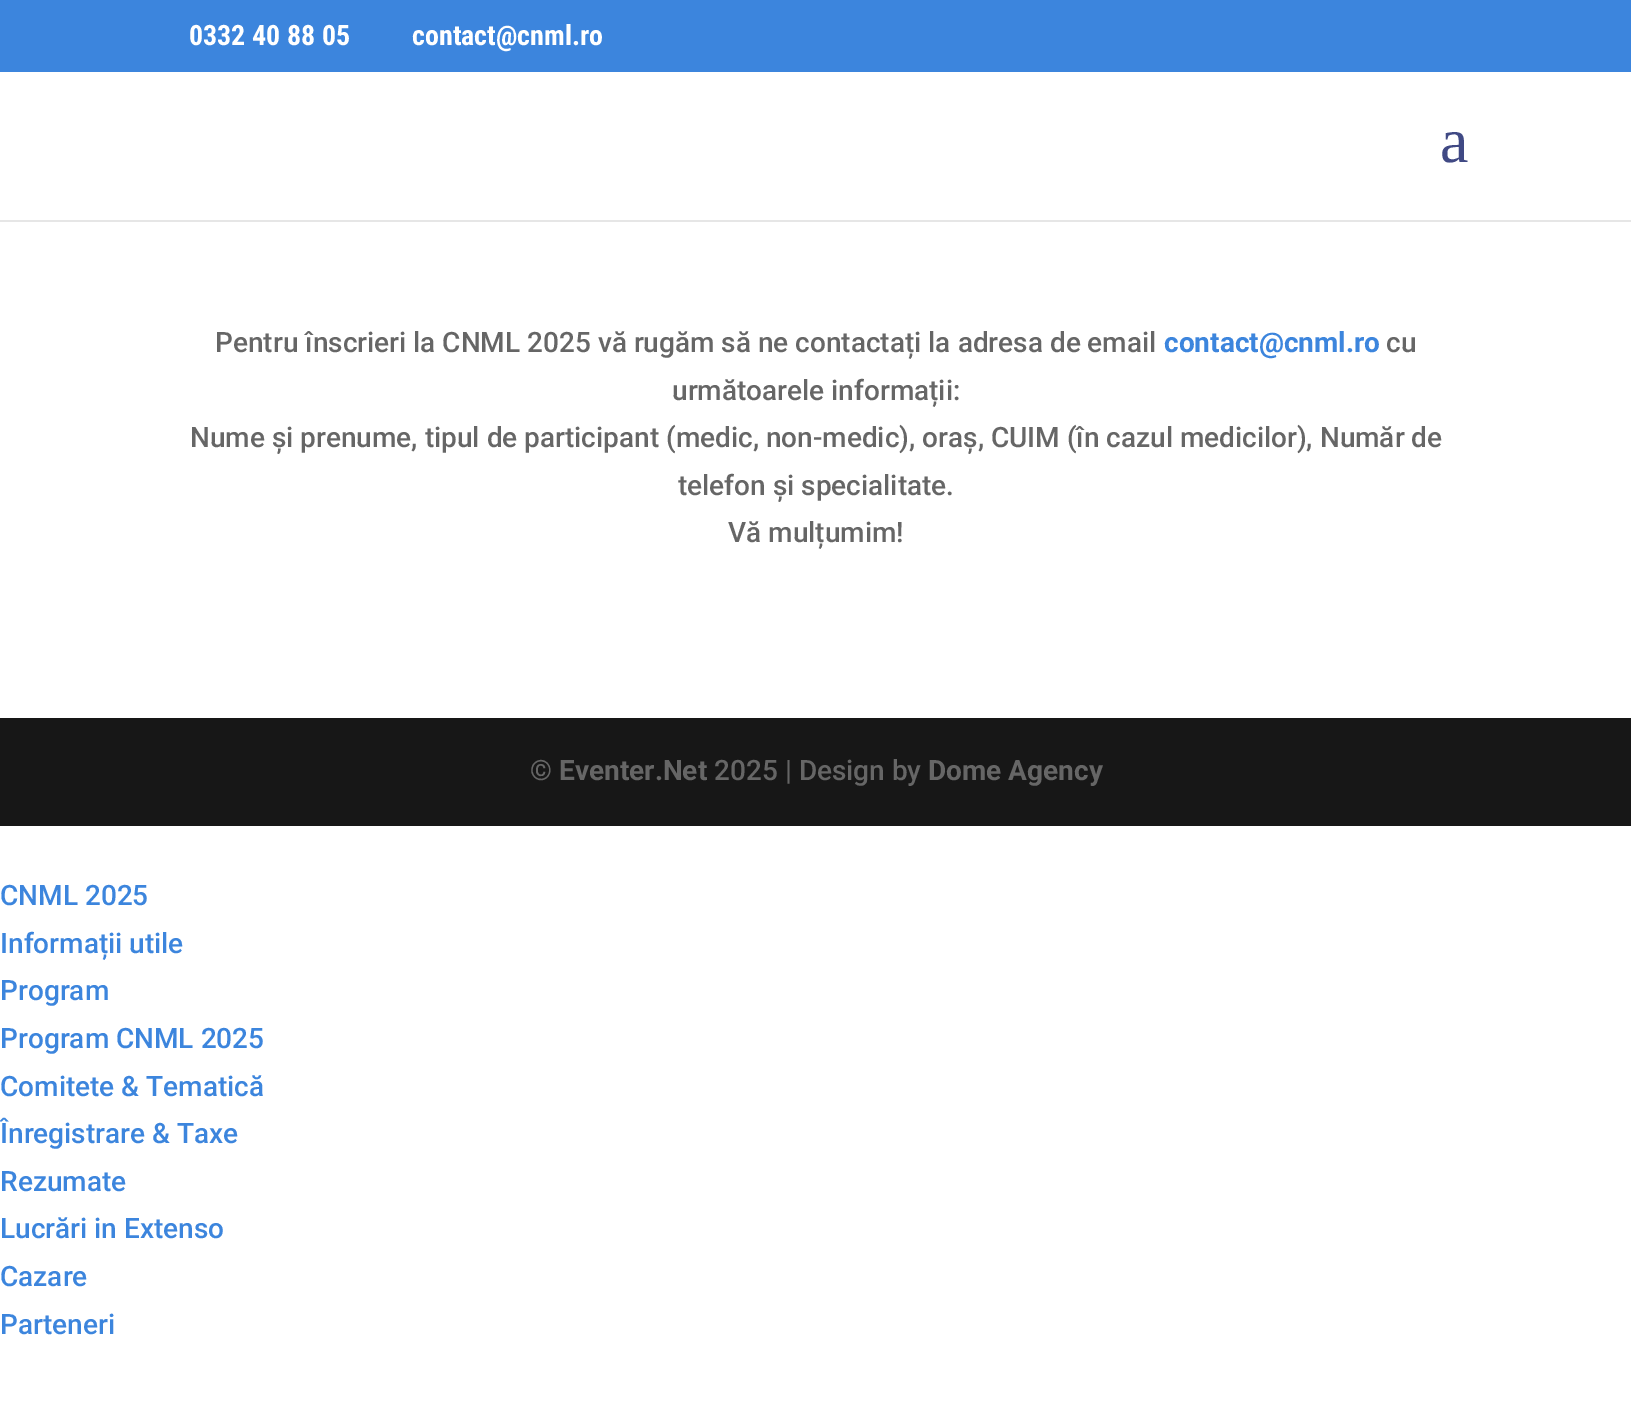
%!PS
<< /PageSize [1631 1417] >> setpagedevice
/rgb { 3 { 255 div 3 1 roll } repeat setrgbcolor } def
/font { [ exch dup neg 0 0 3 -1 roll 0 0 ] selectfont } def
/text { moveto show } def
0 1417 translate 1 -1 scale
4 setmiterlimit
255 255 255 rgb
0 0 1631 1417 rectfill
60 133 221 rgb
0 0 1631 72 rectfill
230 230 230 rgb
0 220 1631 2 rectfill
23 23 23 rgb
0 718 1631 108 rectfill
/RobotoCondensed-Bold 28 font
255 255 255 rgb
(0332 40 88 05) 189 45 text
(contact@cnml.ro) 412 45 text
/LiberationSerif-Regular 64 font
64 73 132 rgb
(a) 1440 162 text
/Roboto-Medium 28 font
102 102 102 rgb
(Pentru înscrieri la CNML 2025 vă rugăm să ne contactați la adresa de email) 215 352 text
/Roboto-Bold 28 font
60 133 221 rgb
(contact@cnml.ro) 1164 352 text
/Roboto-Medium 28 font
102 102 102 rgb
(cu) 1386 352 text
(următoarele informații:) 672 400 text
(Nume și prenume, tipul de participant \(medic, non-medic\), oraș, CUIM \(în cazul medicilor\), Număr de) 190 447 text
(telefon și specialitate.) 678 495 text
(Vă mulțumim!) 728 542 text
(©) 530 780 text
/Roboto-Bold 28 font
(Eventer.Net) 559 780 text
/Roboto-Medium 28 font
(2025 | Design by) 714 780 text
/Roboto-Bold 28 font
(Dome Agency) 928 780 text
/Roboto-Medium 28 font
60 133 221 rgb
(CNML 2025) 0 905 text
(Informații utile) 0 953 text
(Program) 0 1000 text
(Program CNML 2025) 0 1048 text
(Comitete & Tematică) 0 1096 text
(Înregistrare & Taxe) 0 1143 text
(Rezumate) 0 1191 text
(Lucrări in Extenso) 0 1238 text
(Cazare) 0 1286 text
(Parteneri) 0 1334 text
showpage
